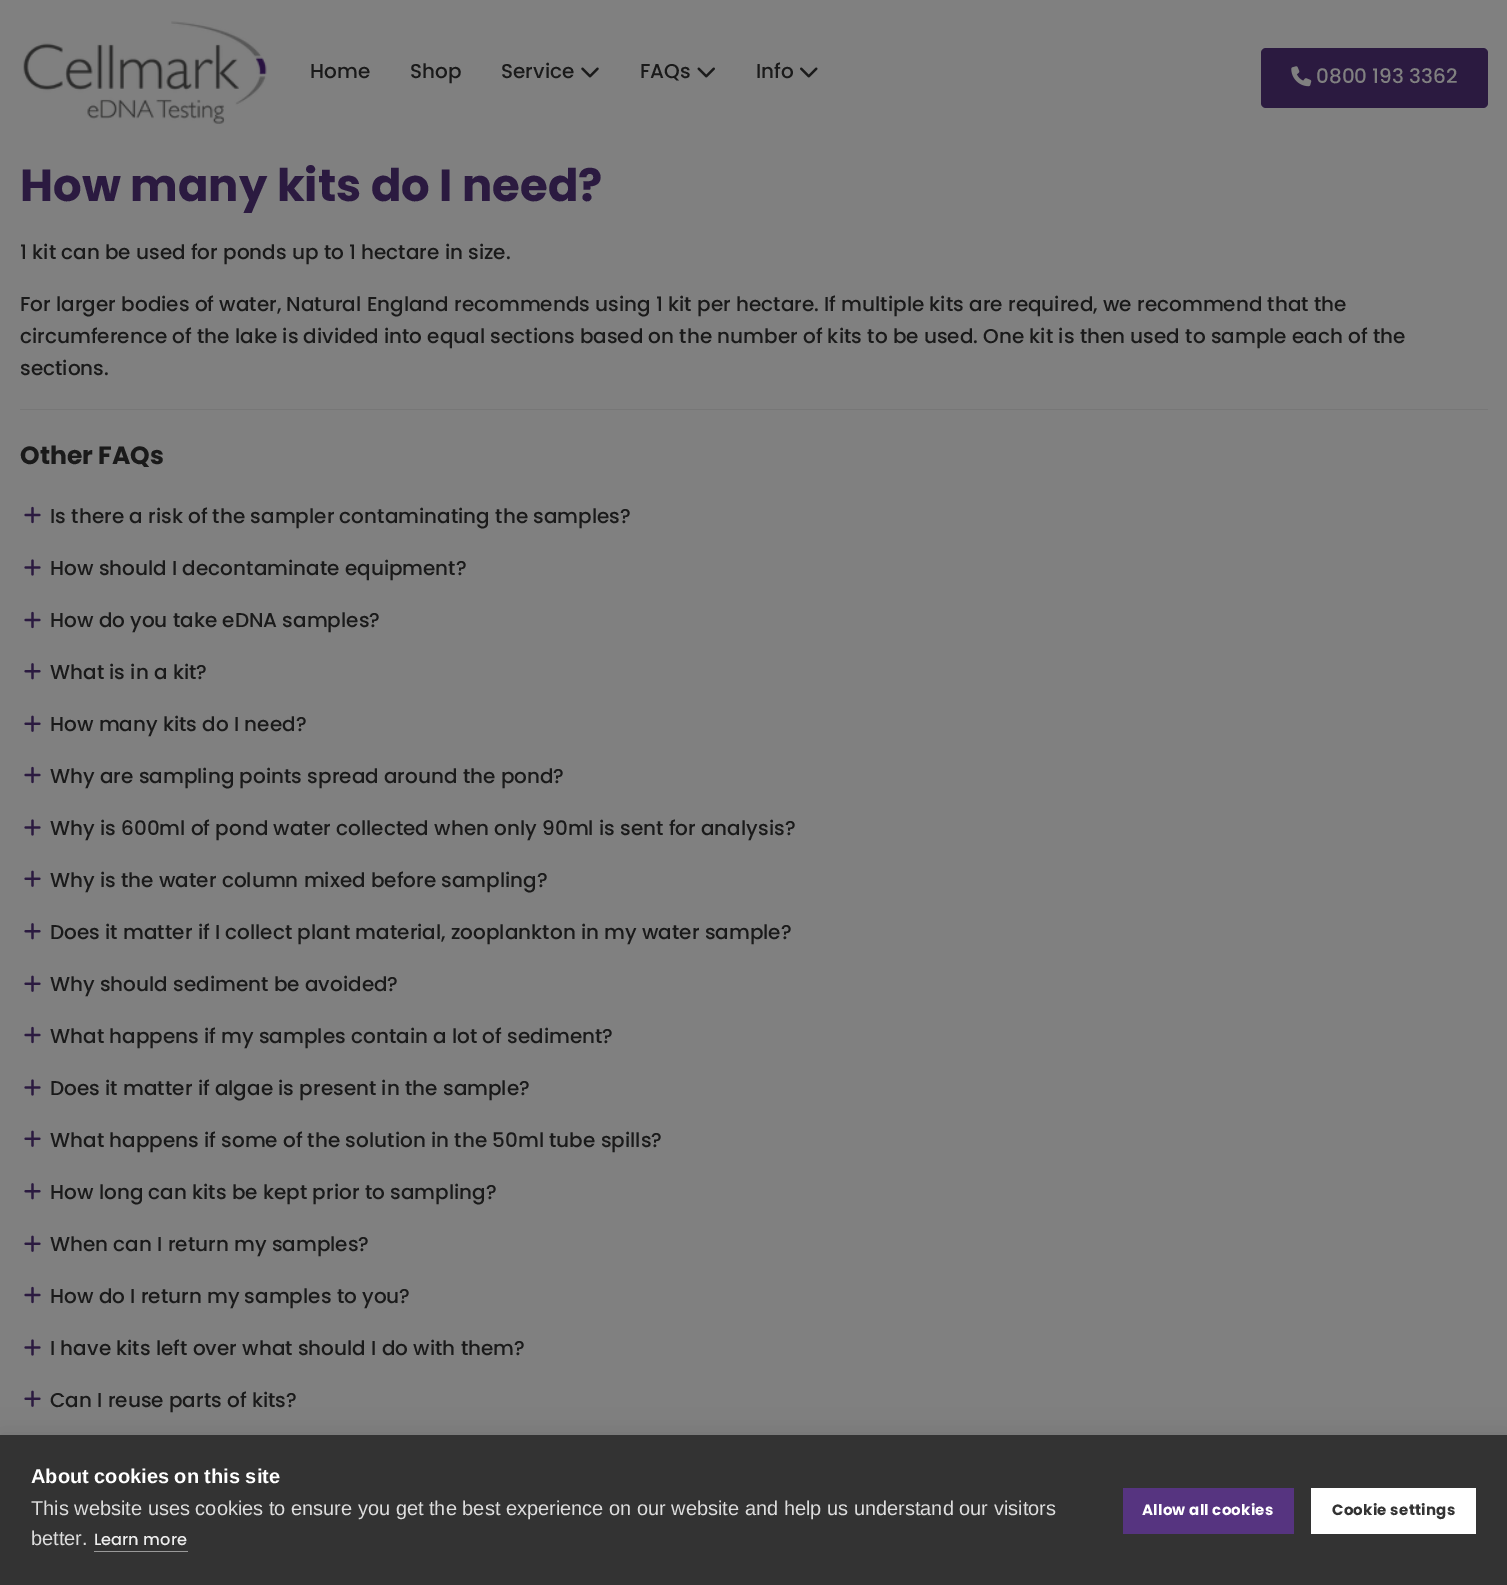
%!PS
<< /PageSize [1507 1585] /PageUsesTransparency true >> setpagedevice
/rgb { 3 { 255 div 3 1 roll } repeat setrgbcolor } def
/font { [ exch dup neg 0 0 3 -1 roll 0 0 ] selectfont } def
/text { moveto show } def
/alpha { dup .setfillconstantalpha .setstrokeconstantalpha } def
/roundrect { 5 dict begin { /r /h /w /y /x } { exch def } forall
  x r add y moveto x w add y 2 copy h add r arct x w add y h add x 1 index r arct
  x y h add x y r arct x y 2 copy exch w add exch r arct closepath end } def
/shadow { 12 dict begin { /a /b /q /h /w /y /x } { exch def } forall gsave /was 0 def
  9 -2 -9 { dup b mul 4 div /e exch def 1 sub .425 mul 2.718 exch exp 1 add a .99 .min exch div /now exch def
    1 1 now sub 1 was sub div sub alpha /was now def
    w h .min e 2 mul add 0 gt { x e sub y e sub w e 2 mul add h e 2 mul add
      q e add b .6 mul add w h .min 2 div e add .min 0 .max roundrect fill } if } for grestore end } def
/picture { 5 dict begin { /h /w /y /x /name } { exch def } forall
  gsave x y translate w h scale
  w h 8 [w 0 0 h 0 0] name (r) file false 3 colorimage grestore end } def
0 .pushpdf14devicefilter
0 1585 translate 1 -1 scale
4 setmiterlimit
128 128 128 rgb
0 0 1507 1585 rectfill
(img_01.rgb) 23 21 244 103 picture
(img_02.rgb) 581 67 18 11 picture
(img_03.rgb) 697 67 18 11 picture
(img_04.rgb) 800 67 18 11 picture
43 26 64 rgb
1261 48 227 60 5 roundrect fill
(img_05.rgb) 1291 66 21 21 picture
119 119 119 rgb
20 409 1468 1 rectfill
(img_06.rgb) 24 506 17 18 picture
(img_07.rgb) 24 559 17 17 picture
(img_06.rgb) 24 611 17 18 picture
(img_08.rgb) 24 663 17 17 picture
(img_09.rgb) 24 715 17 17 picture
(img_06.rgb) 24 766 17 18 picture
(img_07.rgb) 24 819 17 17 picture
(img_09.rgb) 24 870 17 17 picture
(img_08.rgb) 24 923 17 17 picture
(img_09.rgb) 24 975 17 17 picture
(img_06.rgb) 24 1026 17 18 picture
(img_07.rgb) 24 1079 17 17 picture
(img_09.rgb) 24 1130 17 17 picture
(img_08.rgb) 24 1183 17 17 picture
(img_09.rgb) 24 1235 17 17 picture
(img_06.rgb) 24 1286 17 18 picture
(img_07.rgb) 24 1339 17 17 picture
(img_09.rgb) 24 1390 17 17 picture
0 0 0 rgb
0 1435 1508 150 0 12.5 0.1 shadow
51 51 51 rgb
0 1435 1507 150 rectfill
153 153 153 rgb
94 1551 94 1 rectfill
86 52 128 rgb
1123 1488 171 46 rectfill
255 255 255 rgb
1311 1488 165 46 rectfill
/Poppins-Medium 20 font
26 26 26 rgb
(Home) 310 78 text
(Shop) 410 78 text
(Service) 501 78 text
(FAQs) 640 78 text
(Info) 756 78 text
128 128 128 rgb
(0800 193 3362) 1316 83 text
/Poppins-Bold 45 font
43 26 64 rgb
(How many kits do I need?) 20 201 text
/Poppins-Medium 20 font
26 26 26 rgb
(1 kit can be used for ponds up to 1 hectare in size.) 20 259 text
(For larger bodies of water, Natural England recommends using 1 kit per hectare. If multiple kits are required, we recommend that the) 20 311 text
(circumference of the lake is divided into equal sections based on the number of kits to be used. One kit is then used to sample each of the) 20 343 text
(sections.) 20 375 text
/Poppins-Bold 25 font
(Other FAQs) 20 464 text
/Poppins-Medium 20 font
(Is there a risk of the sampler contaminating the samples?) 50 523 text
(How should I decontaminate equipment?) 50 575 text
(How do you take eDNA samples?) 50 627 text
(What is in a kit?) 50 679 text
(How many kits do I need?) 50 731 text
(Why are sampling points spread around the pond?) 50 783 text
(Why is 600ml of pond water collected when only 90ml is sent for analysis?) 50 835 text
(Why is the water column mixed before sampling?) 50 887 text
(Does it matter if I collect plant material, zooplankton in my water sample?) 50 939 text
(Why should sediment be avoided?) 50 991 text
(What happens if my samples contain a lot of sediment?) 50 1043 text
(Does it matter if algae is present in the sample?) 50 1095 text
(What happens if some of the solution in the 50ml tube spills?) 50 1147 text
(How long can kits be kept prior to sampling?) 50 1199 text
(When can I return my samples?) 50 1251 text
(How do I return my samples to you?) 50 1303 text
(I have kits left over what should I do with them?) 50 1355 text
(Can I reuse parts of kits?) 50 1407 text
/LiberationSans-Bold 20 font
255 255 255 rgb
(About cookies on this site) 31 1483 text
/LiberationSans-Regular 20 font
221 221 221 rgb
(This website uses cookies to ensure you get the best experience on our website and help us understand our visitors) 31 1515 text
(better.) 31 1545 text
/Poppins-Medium 16.25 font
238 238 238 rgb
(Learn more) 94 1545 text
/Poppins-Bold 15 font
255 255 255 rgb
1142 1515 moveto 0.25 0 (Allow all cookies) ashow
51 51 51 rgb
1332 1515 moveto 0.25 0 (Cookie settings) ashow
.poppdf14devicefilter showpage
